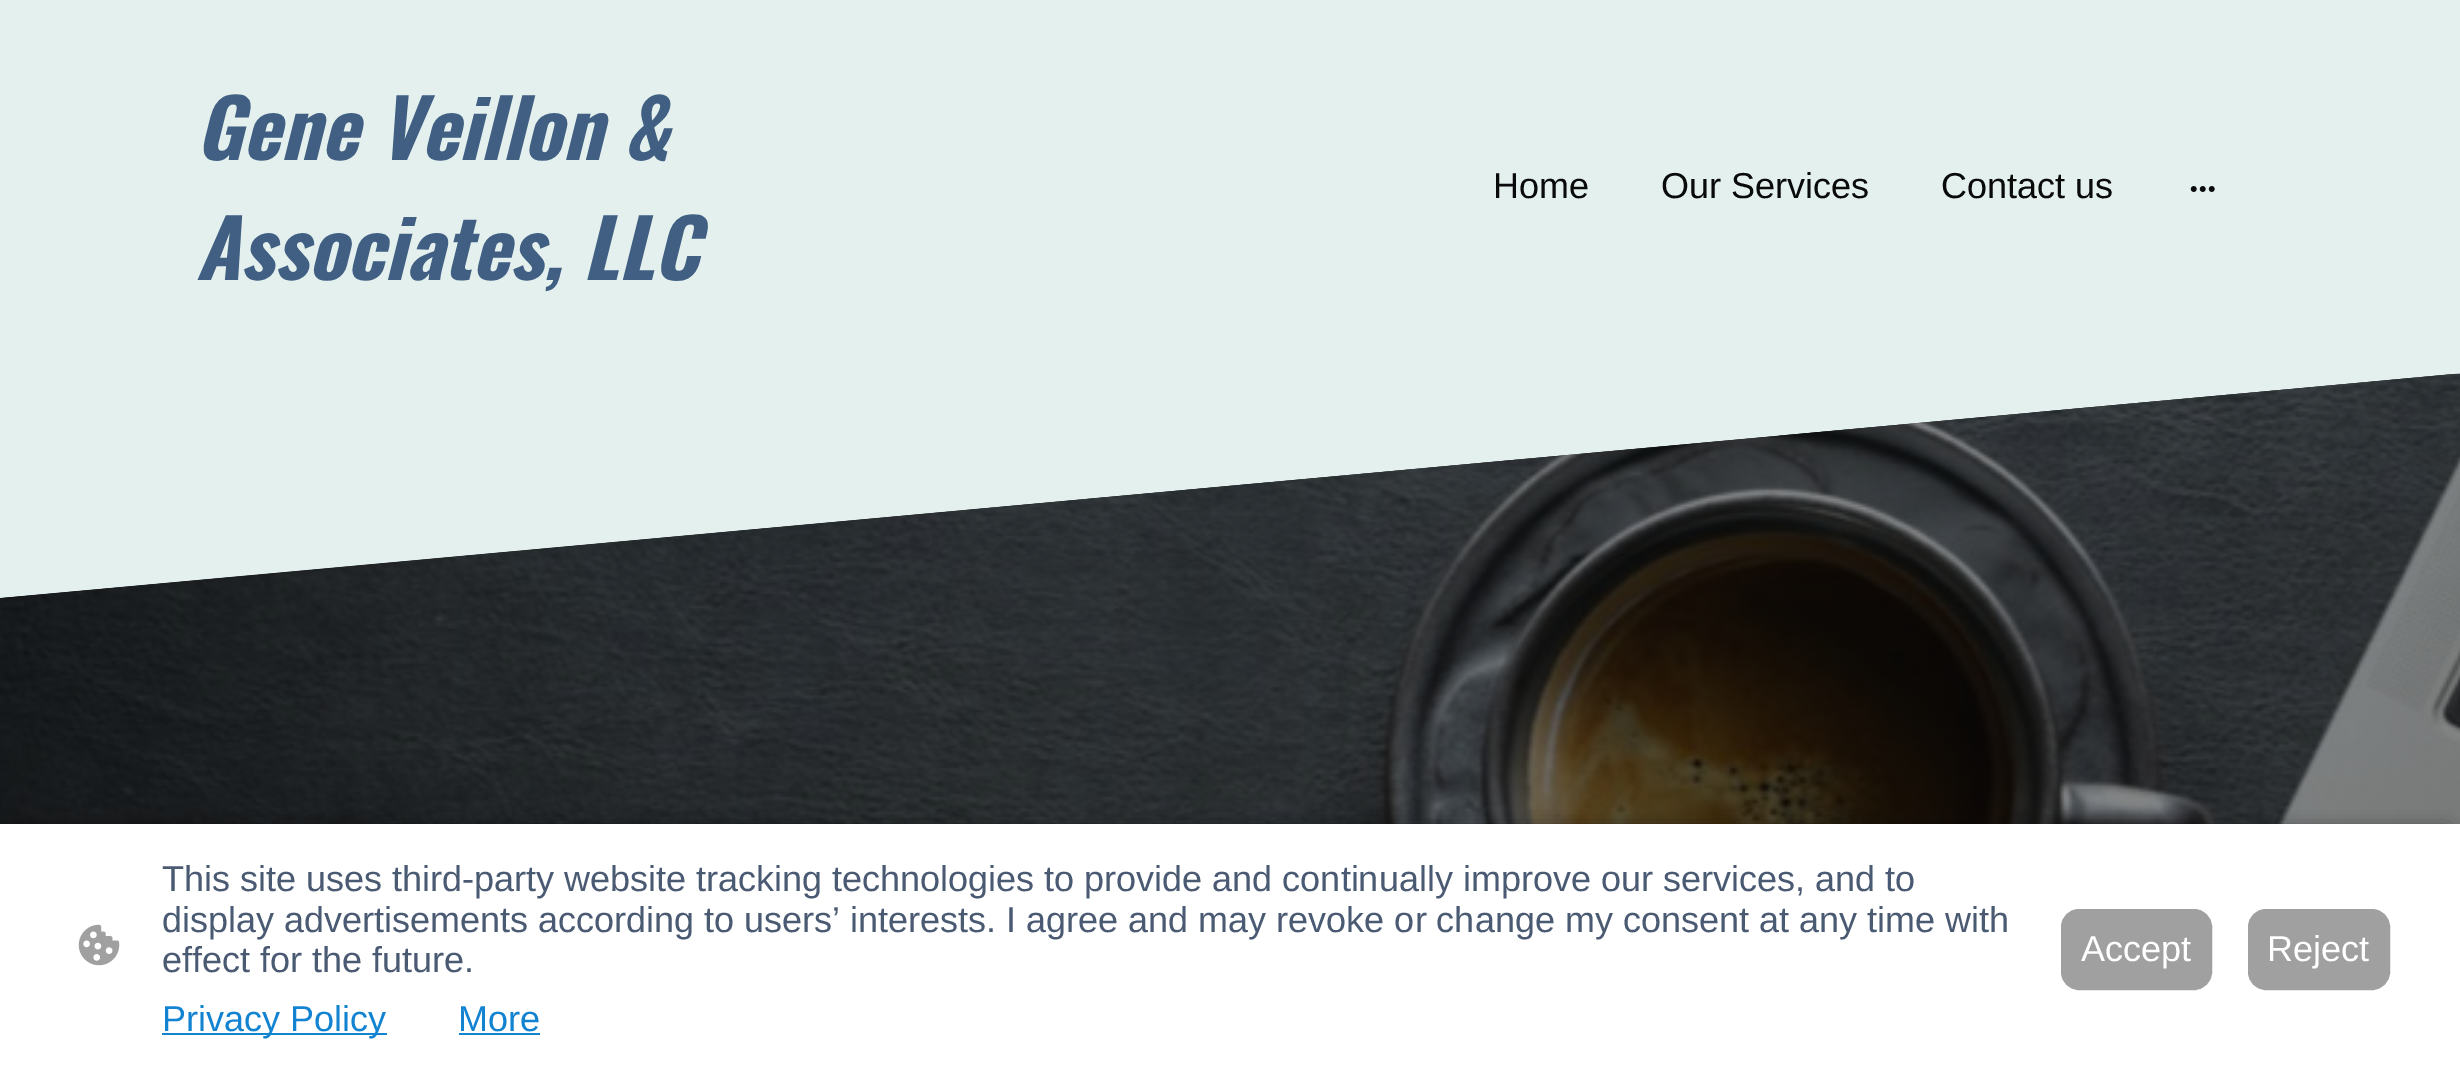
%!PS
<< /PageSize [2460 1075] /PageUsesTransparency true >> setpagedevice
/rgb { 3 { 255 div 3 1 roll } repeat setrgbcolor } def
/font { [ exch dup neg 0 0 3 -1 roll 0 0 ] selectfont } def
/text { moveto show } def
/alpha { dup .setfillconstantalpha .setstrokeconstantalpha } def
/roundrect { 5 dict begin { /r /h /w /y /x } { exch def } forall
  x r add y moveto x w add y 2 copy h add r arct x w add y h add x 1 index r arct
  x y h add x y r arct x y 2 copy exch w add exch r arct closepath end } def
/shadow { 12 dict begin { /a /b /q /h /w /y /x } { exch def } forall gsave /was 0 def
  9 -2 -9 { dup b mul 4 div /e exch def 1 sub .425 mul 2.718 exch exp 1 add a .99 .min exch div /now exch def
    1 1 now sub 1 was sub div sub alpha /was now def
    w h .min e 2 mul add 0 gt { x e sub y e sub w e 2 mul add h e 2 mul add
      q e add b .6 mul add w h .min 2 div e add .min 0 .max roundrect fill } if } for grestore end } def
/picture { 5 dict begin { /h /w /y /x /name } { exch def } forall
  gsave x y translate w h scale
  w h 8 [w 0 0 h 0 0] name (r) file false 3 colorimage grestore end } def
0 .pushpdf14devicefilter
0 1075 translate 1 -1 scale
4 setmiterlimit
228 240 237 rgb
0 0 2460 1075 rectfill
(img_01.rgb) 197 94 511 198 picture
(img_02.rgb) 2190 186 25 6 picture
9 10 10 rgb
0 598 moveto 0 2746 rlineto 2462 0 rlineto 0 -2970 rlineto -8 0 rlineto closepath fill
(img_03.rgb) 0 373 2460 451 picture
0 0 0 rgb
14 830 2434 225 0 9 0.63 shadow
255 255 255 rgb
0 824 2460 251 rectfill
(img_04.rgb) 78 924 42 42 picture
17 131 209 rgb
162 1033 225 2 rectfill
459 1033 81 2 rectfill
160 160 160 rgb
2062 910 149 79 17 roundrect gsave fill grestore
2 setlinewidth
stroke
2249 910 140 79 17 roundrect gsave fill grestore
stroke
/LiberationSans-Regular 36 font
9 10 10 rgb
(Home) 1493 198 text
(Our Services) 1661 198 text
(Contact us) 1941 198 text
74 90 115 rgb
(This site uses third-party website tracking technologies to provide and continually improve our services, and to) 162 891 text
(display advertisements according to users’ interests. I agree and may revoke or change my consent at any time with) 162 932 text
(effect for the future.) 162 972 text
17 131 209 rgb
(Privacy Policy) 162 1031 text
(More) 458 1031 text
255 255 255 rgb
(Accept) 2081 961 text
(Reject) 2267 961 text
.poppdf14devicefilter showpage
